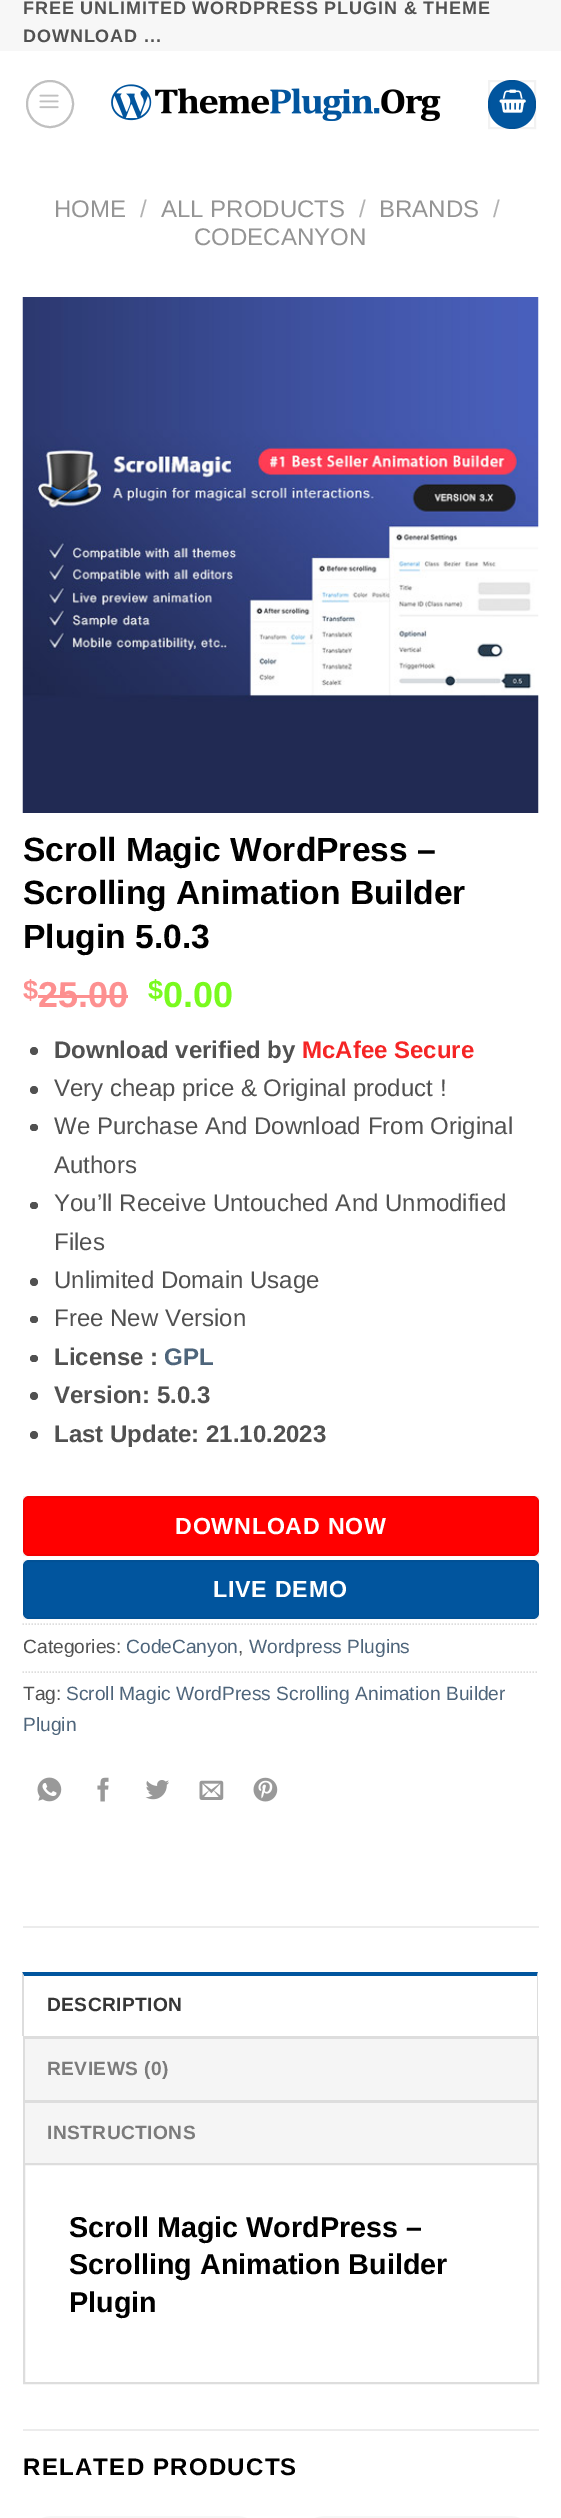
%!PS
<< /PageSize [561 2518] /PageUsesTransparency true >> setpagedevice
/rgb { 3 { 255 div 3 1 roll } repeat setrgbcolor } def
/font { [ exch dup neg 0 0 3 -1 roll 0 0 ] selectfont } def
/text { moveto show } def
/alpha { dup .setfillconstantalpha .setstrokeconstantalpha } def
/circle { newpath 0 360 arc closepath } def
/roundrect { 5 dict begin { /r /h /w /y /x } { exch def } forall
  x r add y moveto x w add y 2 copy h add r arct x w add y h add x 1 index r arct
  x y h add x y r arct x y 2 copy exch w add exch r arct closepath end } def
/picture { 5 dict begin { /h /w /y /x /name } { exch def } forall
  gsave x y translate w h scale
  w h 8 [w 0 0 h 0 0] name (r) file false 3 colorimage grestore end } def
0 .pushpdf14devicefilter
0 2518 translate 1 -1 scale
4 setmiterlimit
255 255 255 rgb
0 0 561 2518 rectfill
247 247 247 rgb
0 0 561 51 rectfill
192 192 192 rgb
2 setlinewidth
50 104 23 circle stroke
(img_01.rgb) 39 94 20 15 picture
(img_02.rgb) 111 84 330 38 picture
1 85 158 rgb
488 80 48 49 24 roundrect fill
0.05 alpha
0 0 0 rgb
489 81 46 47 rectstroke
1 alpha
(img_03.rgb) 499 89 27 24 picture
(img_04.rgb) 22 297 517 516 picture
253 144 144 rgb
38 995 90 3 rectfill
81 81 81 rgb
34 1051 4 circle fill
34 1090 4 circle fill
30 1124 8 7 3.5 roundrect fill
30 1202 8 7 3.5 roundrect fill
34 1282 4 circle fill
30 1316 8 7 3.5 roundrect fill
30 1355 8 7 3.5 roundrect fill
34 1396 4 circle fill
34 1435 4 circle fill
255 0 0 rgb
23 1496 516 60 6 roundrect fill
0.05 alpha
0 0 0 rgb
24 1497 514 58 rectstroke
1 alpha
1 85 158 rgb
23 1560 516 59 6 roundrect fill
0.05 alpha
0 0 0 rgb
24 1561 514 57 rectstroke
1 alpha
221 221 221 rgb
1.5 setlinewidth
[1.5 1.5] 0 setdash
22.5 1624 moveto 516 0 rlineto stroke
22.5 1672 moveto 516 0 rlineto stroke
(img_05.rgb) 37 1777 25 25 picture
(img_06.rgb) 97 1777 12 25 picture
(img_07.rgb) 145 1780 24 20 picture
(img_08.rgb) 199 1780 25 20 picture
(img_09.rgb) 253 1777 25 25 picture
236 236 236 rgb
23 1926 516 2 rectfill
1 85 158 rgb
22 1972 moveto 516 0 rlineto -1 4 rlineto -513 0 rlineto closepath fill
221 221 221 rgb
538 1972 moveto 0 64 rlineto -1 0 rlineto 0 -60 rlineto closepath fill
22 2036 moveto 0 -64 rlineto 2 4 rlineto 0 60 rlineto closepath fill
245 245 245 rgb
25 2039 512 61 rectfill
221 221 221 rgb
23 2036 516 3 rectfill
537 2036 2 64 rectfill
23 2036 2 64 rectfill
245 245 245 rgb
25 2103 512 60 rectfill
221 221 221 rgb
23 2100 516 3 rectfill
537 2100 2 63 rectfill
23 2100 2 63 rectfill
2 setlinewidth
[] 0 setdash
24 2164 514 219 rectstroke
236 236 236 rgb
23 2429 516 2 rectfill
247 247 247 rgb
23 2516 243 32 30 roundrect fill
296 2516 243 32 30 roundrect fill
/LiberationSans-Bold 18 font
81 81 81 rgb
23 14 moveto 0.9 0 (FREE UNLIMITED WORDPRESS PLUGIN & THEME) ashow
23 42 moveto 0.9 0 (DOWNLOAD ...) ashow
/LiberationSans-Regular 24 font
148 148 148 rgb
(HOME) 54 217 text
178 178 178 rgb
(/) 140 217 text
148 148 148 rgb
(ALL PRODUCTS) 161 217 text
178 178 178 rgb
(/) 359 217 text
148 148 148 rgb
(BRANDS) 379 217 text
178 178 178 rgb
(/) 493 217 text
148 148 148 rgb
(CODECANYON) 194 245 text
/LiberationSans-Bold 33.6 font
0 0 0 rgb
(Scroll Magic WordPress –) 23 861 text
(Scrolling Animation Builder) 23 904 text
(Plugin 5.0.3) 23 948 text
/LiberationSans-Bold 27 font
253 144 144 rgb
($) 23 999 text
/LiberationSans-Bold 36 font
(25.00) 38 1007 text
/LiberationSans-Bold 27 font
121 250 30 rgb
($) 148 999 text
/LiberationSans-Bold 36 font
(0.00) 163 1007 text
/LiberationSans-Bold 24 font
81 81 81 rgb
(Download verified by) 54 1058 text
245 37 37 rgb
(McAfee Secure) 302 1058 text
/LiberationSans-Regular 24 font
81 81 81 rgb
(Very cheap price & Original product !) 54 1096 text
(We Purchase And Download From Original) 54 1134 text
(Authors) 54 1173 text
(You’ll Receive Untouched And Unmodified) 54 1211 text
(Files) 54 1250 text
(Unlimited Domain Usage) 54 1288 text
(Free New Version) 54 1326 text
/LiberationSans-Bold 24 font
(License :) 54 1365 text
78 101 123 rgb
(GPL) 164 1365 text
81 81 81 rgb
(Version: 5.0.3) 54 1403 text
(Last Update: 21.10.2023) 54 1442 text
/LiberationSans-Bold 23.25 font
255 255 255 rgb
175 1534 moveto 0.75 0 (DOWNLOAD NOW) ashow
213 1597 moveto 0.75 0 (LIVE DEMO) ashow
/LiberationSans-Regular 19.2 font
81 81 81 rgb
(Categories:) 23 1653 text
78 101 123 rgb
(CodeCanyon) 126 1653 text
81 81 81 rgb
(,) 238 1653 text
78 101 123 rgb
(Wordpress Plugins) 249 1653 text
81 81 81 rgb
(Tag:) 23 1700 text
78 101 123 rgb
(Scroll Magic WordPress Scrolling Animation Builder) 66 1700 text
(Plugin) 23 1731 text
/LiberationSans-Bold 19.2 font
54 54 54 rgb
47 2011 moveto 0.4 0 (DESCRIPTION) ashow
123 123 123 rgb
47 2075 moveto 0.4 0 (REVIEWS \(0\)) ashow
47 2139 moveto 0.4 0 (INSTRUCTIONS) ashow
/LiberationSans-Bold 28.75 font
0 0 0 rgb
(Scroll Magic WordPress –) 69 2237 text
(Scrolling Animation Builder) 69 2274 text
(Plugin) 69 2312 text
/LiberationSans-Bold 24 font
23 2475 moveto 1.25 0 (RELATED PRODUCTS) ashow
.poppdf14devicefilter showpage
